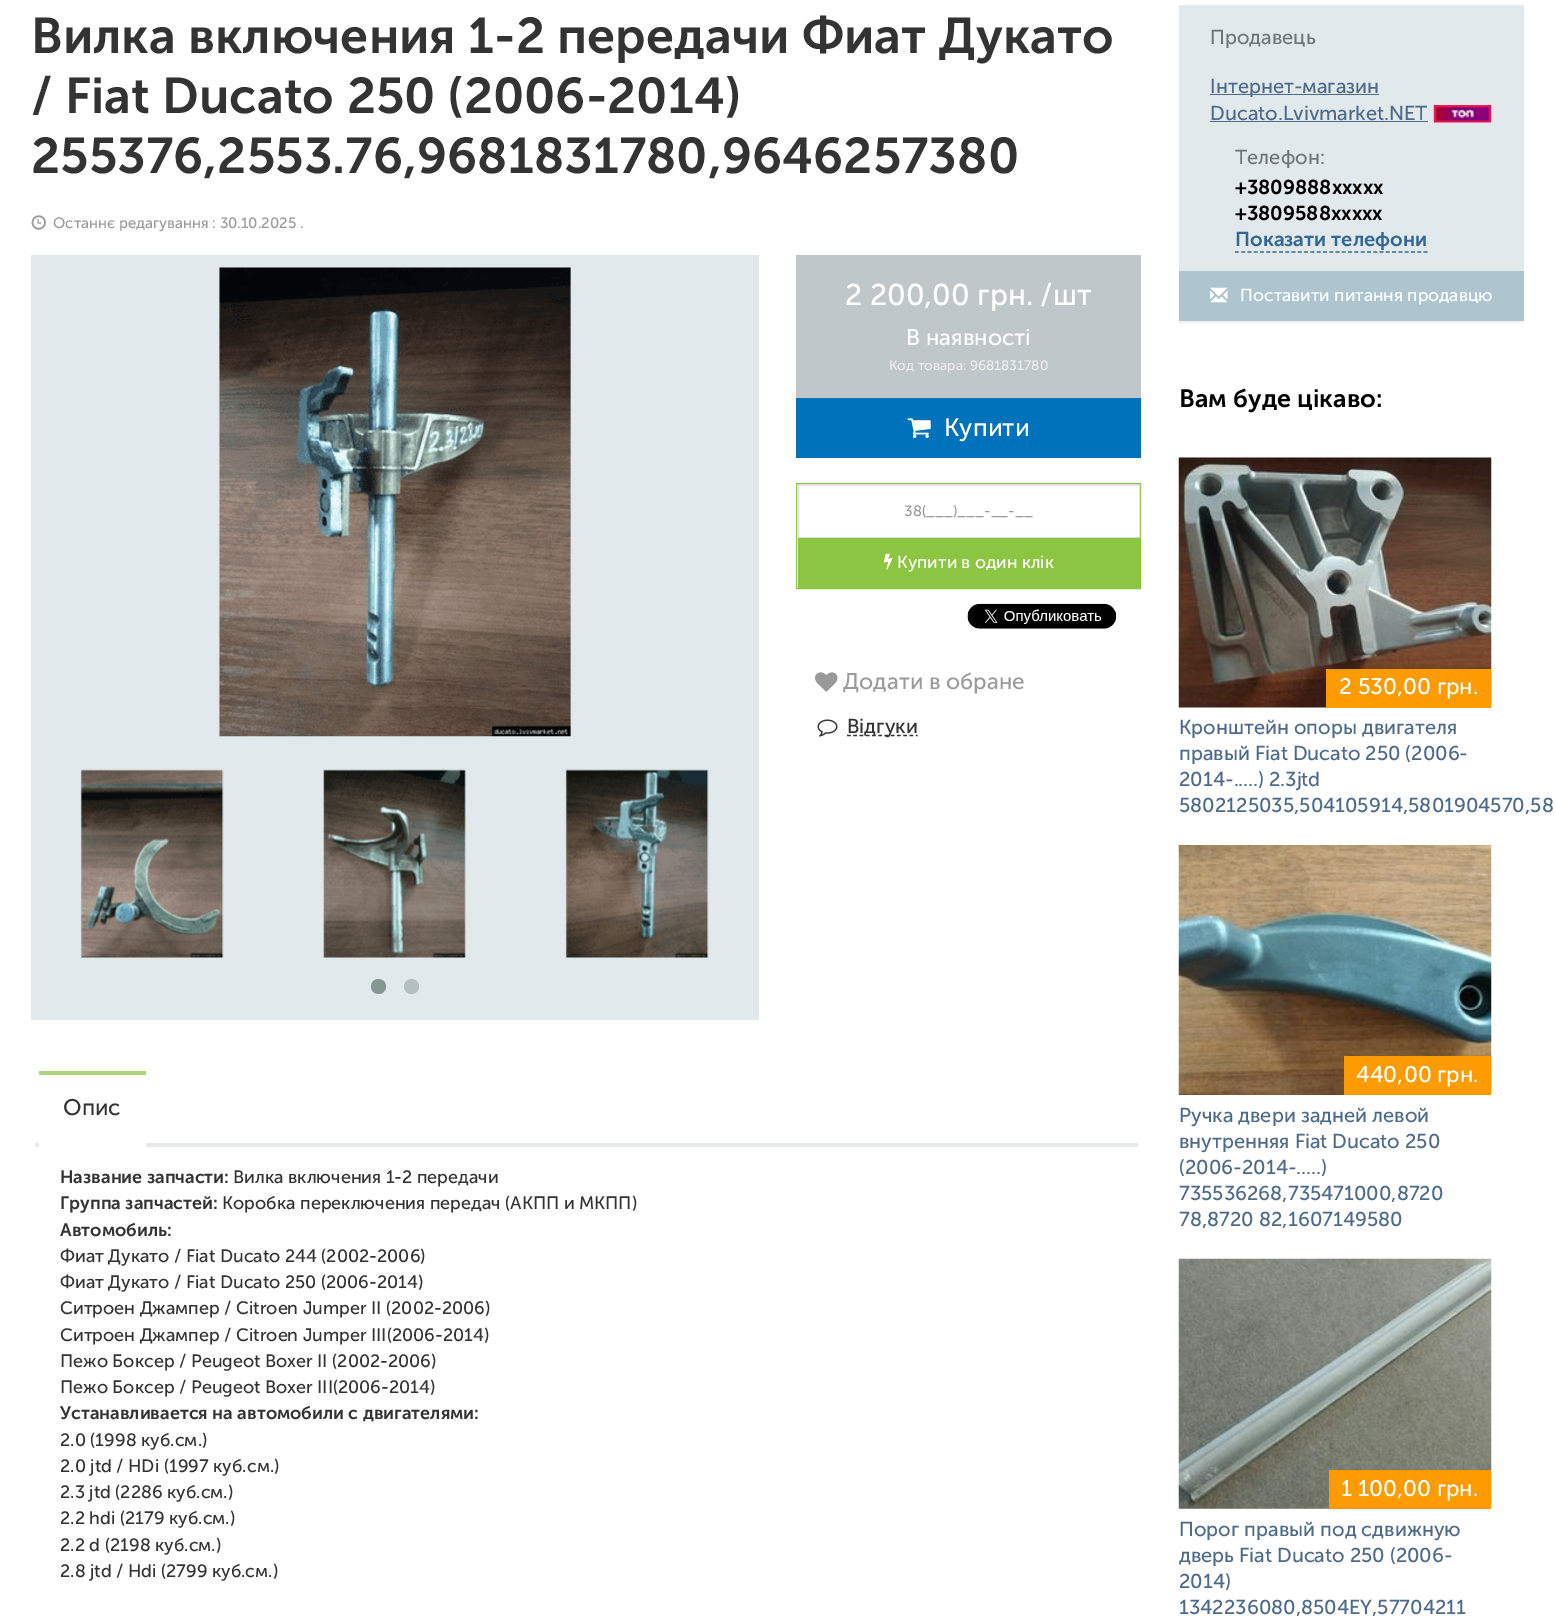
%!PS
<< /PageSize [1555 1617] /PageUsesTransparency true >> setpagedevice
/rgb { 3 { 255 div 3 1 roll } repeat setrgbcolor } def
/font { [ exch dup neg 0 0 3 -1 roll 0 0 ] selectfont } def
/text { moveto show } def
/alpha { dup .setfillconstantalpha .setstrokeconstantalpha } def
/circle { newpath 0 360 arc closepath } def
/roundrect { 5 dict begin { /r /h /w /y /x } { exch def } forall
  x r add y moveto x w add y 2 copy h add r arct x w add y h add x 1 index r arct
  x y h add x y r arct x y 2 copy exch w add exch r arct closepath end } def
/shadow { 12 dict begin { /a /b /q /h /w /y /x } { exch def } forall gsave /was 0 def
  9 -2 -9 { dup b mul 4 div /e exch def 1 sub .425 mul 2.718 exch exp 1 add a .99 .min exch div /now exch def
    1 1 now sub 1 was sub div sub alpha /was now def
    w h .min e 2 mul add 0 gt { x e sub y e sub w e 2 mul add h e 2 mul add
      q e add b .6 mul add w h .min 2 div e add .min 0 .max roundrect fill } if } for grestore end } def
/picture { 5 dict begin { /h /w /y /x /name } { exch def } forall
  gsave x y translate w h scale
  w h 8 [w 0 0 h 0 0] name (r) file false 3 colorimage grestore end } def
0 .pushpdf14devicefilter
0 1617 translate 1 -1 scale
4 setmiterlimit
255 255 255 rgb
0 0 1555 1617 rectfill
(img_01.rgb) 31 215 15 15 picture
225 233 237 rgb
31 255 728 765 rectfill
(img_02.rgb) 219 267 352 470 picture
(img_03.rgb) 80 769 144 189 picture
(img_04.rgb) 323 769 143 189 picture
(img_05.rgb) 565 769 144 189 picture
134 151 145 rgb
378.5 986.5 7.5 circle fill
180 192 191 rgb
411.5 986.5 7.5 circle fill
192 199 202 rgb
796 255 345 143 rectfill
0 114 188 rgb
796 398 345 60 rectfill
(img_06.rgb) 907 418 24 20 picture
140 197 65 rgb
796.5 483.5 344 105 rectstroke
236 236 236 rgb
799 485 340 1 rectfill
221 221 221 rgb
798.5 484.5 341 53 rectstroke
140 197 65 rgb
798 538 342 50 rectfill
(img_07.rgb) 883 553 10 17 picture
(img_08.rgb) 967 603 150 26 picture
(img_09.rgb) 815 672 23 20 picture
(img_10.rgb) 817 719 21 18 picture
51 51 51 rgb
1.2 setlinewidth
[3.75 2.5] 0 setdash
847 735.5 moveto 70.5 0 rlineto stroke
230 232 234 rgb
35 1143 1103 4 rectfill
255 255 255 rgb
39 1143 107 4 rectfill
173 214 120 rgb
39 1071 107 4 rectfill
0 0 0 rgb
1179 6 345 317 0 0.5 0.05 shadow
225 233 237 rgb
1179 5 345 266 rectfill
77 106 139 rgb
1210 94 169 1 rectfill
1210 121 218 1 rectfill
(img_11.rgb) 1433 105 59 18 picture
51 102 153 rgb
[3.75 2.54] 0 setdash
1235 252 moveto 192.5 0 rlineto stroke
174 197 208 rgb
1179 271 345 50 rectfill
(img_12.rgb) 1210 287 18 16 picture
(img_13.rgb) 1178 457 314 251 picture
253 155 0 rgb
1326 669 165 39 rectfill
(img_14.rgb) 1178 845 314 250 picture
1344 1056 147 39 rectfill
(img_15.rgb) 1178 1258 314 251 picture
1329 1470 162 39 rectfill
/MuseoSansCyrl-SemiBold 50 font
51 51 51 rgb
(Вилка включения 1-2 передачи Фиат Дукато) 31 53 text
(/ Fiat Ducato 250 \(2006-2014\)) 31 113 text
(255376,2553.76,9681831780,9646257380) 31 173 text
/MuseoSansCyrl-Regular 15 font
154 154 154 rgb
(Останнє редагування : 30.10.2025 .) 53 228 text
/MuseoSansCyrl-Regular 30 font
255 255 255 rgb
(2 200,00 грн. /шт) 845 305 text
/MuseoSansCyrl-Regular 22.5 font
(В наявності) 906 345 text
/MuseoSansCyrl-Regular 13.75 font
238 238 238 rgb
(Код товара: 9681831780) 889 370 text
/MuseoSansCyrl-Regular 25 font
255 255 255 rgb
(Купити) 944 436 text
/MuseoSansCyrl-Regular 15 font
154 154 154 rgb
(38\(___\)___-__-__) 904 516 text
/MuseoSansCyrl-Regular 17.5 font
255 255 255 rgb
(Купити в один клік) 897 568 text
/MuseoSansCyrl-Regular 22.5 font
154 154 154 rgb
(Додати в обране) 843 689 text
/MuseoSansCyrl-Regular 20 font
51 51 51 rgb
(Відгуки) 847 733 text
/MuseoSansCyrl-Regular 22.5 font
(Опис) 63 1115 text
/MuseoSansCyrl-SemiBold 17.9 font
(Название запчасти:) 60 1183 text
/MuseoSansCyrl-Regular 17.9 font
(Вилка включения 1-2 передачи) 233 1183 text
/MuseoSansCyrl-SemiBold 17.9 font
(Группа запчастей:) 60 1209 text
/MuseoSansCyrl-Regular 17.9 font
(Коробка переключения передач \(АКПП и МКПП\)) 222 1209 text
/MuseoSansCyrl-SemiBold 17.9 font
(Автомобиль:) 60 1236 text
/MuseoSansCyrl-Regular 17.9 font
(Фиат Дукато / Fiat Ducato 244 \(2002-2006\)) 60 1262 text
(Фиат Дукато / Fiat Ducato 250 \(2006-2014\)) 60 1288 text
(Ситроен Джампер / Citroen Jumper II \(2002-2006\)) 60 1314 text
(Ситроен Джампер / Citroen Jumper III\(2006-2014\)) 60 1341 text
(Пежо Боксер / Peugeot Boxer II \(2002-2006\)) 60 1367 text
(Пежо Боксер / Peugeot Boxer III\(2006-2014\)) 60 1393 text
/MuseoSansCyrl-SemiBold 17.9 font
(Устанавливается на автомобили с двигателями:) 60 1419 text
/MuseoSansCyrl-Regular 17.9 font
(2.0 \(1998 куб.см.\)) 60 1446 text
(2.0 jtd / HDi \(1997 куб.см.\)) 60 1472 text
(2.3 jtd \(2286 куб.см.\)) 60 1498 text
(2.2 hdi \(2179 куб.см.\)) 60 1524 text
(2.2 d \(2198 куб.см.\)) 60 1551 text
(2.8 jtd / Hdi \(2799 куб.см.\)) 60 1577 text
/MuseoSansCyrl-Regular 20 font
112 117 120 rgb
(Продавець) 1210 44 text
77 106 139 rgb
(Інтернет-магазин) 1210 93 text
(Ducato.Lvivmarket.NET) 1210 120 text
112 117 120 rgb
(Телефон:) 1235 164 text
/MuseoSansCyrl-SemiBold 20 font
0 0 0 rgb
(+3809888xxxxx) 1235 194 text
(+3809588xxxxx) 1235 220 text
51 102 153 rgb
(Показати телефони) 1235 246 text
/MuseoSansCyrl-Regular 17.5 font
255 255 255 rgb
(Поставити питання продавцю) 1240 301 text
/MuseoSansCyrl-SemiBold 25 font
0 0 0 rgb
(Вам буде цікаво:) 1179 407 text
/MuseoSansCyrl-Regular 22.5 font
255 255 255 rgb
(2 530,00 грн.) 1339 694 text
/MuseoSansCyrl-Regular 20 font
77 106 139 rgb
(Кронштейн опоры двигателя) 1179 734 text
(правый Fiat Ducato 250 \(2006-) 1179 760 text
(2014-.....\) 2.3jtd) 1179 786 text
(5802125035,504105914,5801904570,58) 1179 812 text
/MuseoSansCyrl-Regular 22.5 font
255 255 255 rgb
(440,00 грн.) 1356 1082 text
/MuseoSansCyrl-Regular 20 font
77 106 139 rgb
(Ручка двери задней левой) 1179 1122 text
(внутренняя Fiat Ducato 250) 1179 1148 text
(\(2006-2014-.....\)) 1179 1174 text
(735536268,735471000,8720) 1179 1200 text
(78,8720 82,1607149580) 1179 1226 text
/MuseoSansCyrl-Regular 22.5 font
255 255 255 rgb
(1 100,00 грн.) 1341 1496 text
/MuseoSansCyrl-Regular 20 font
77 106 139 rgb
(Порог правый под сдвижную) 1179 1536 text
(дверь Fiat Ducato 250 \(2006-) 1179 1562 text
(2014\)) 1179 1588 text
(1342236080,8504EY,57704211) 1179 1614 text
.poppdf14devicefilter showpage
